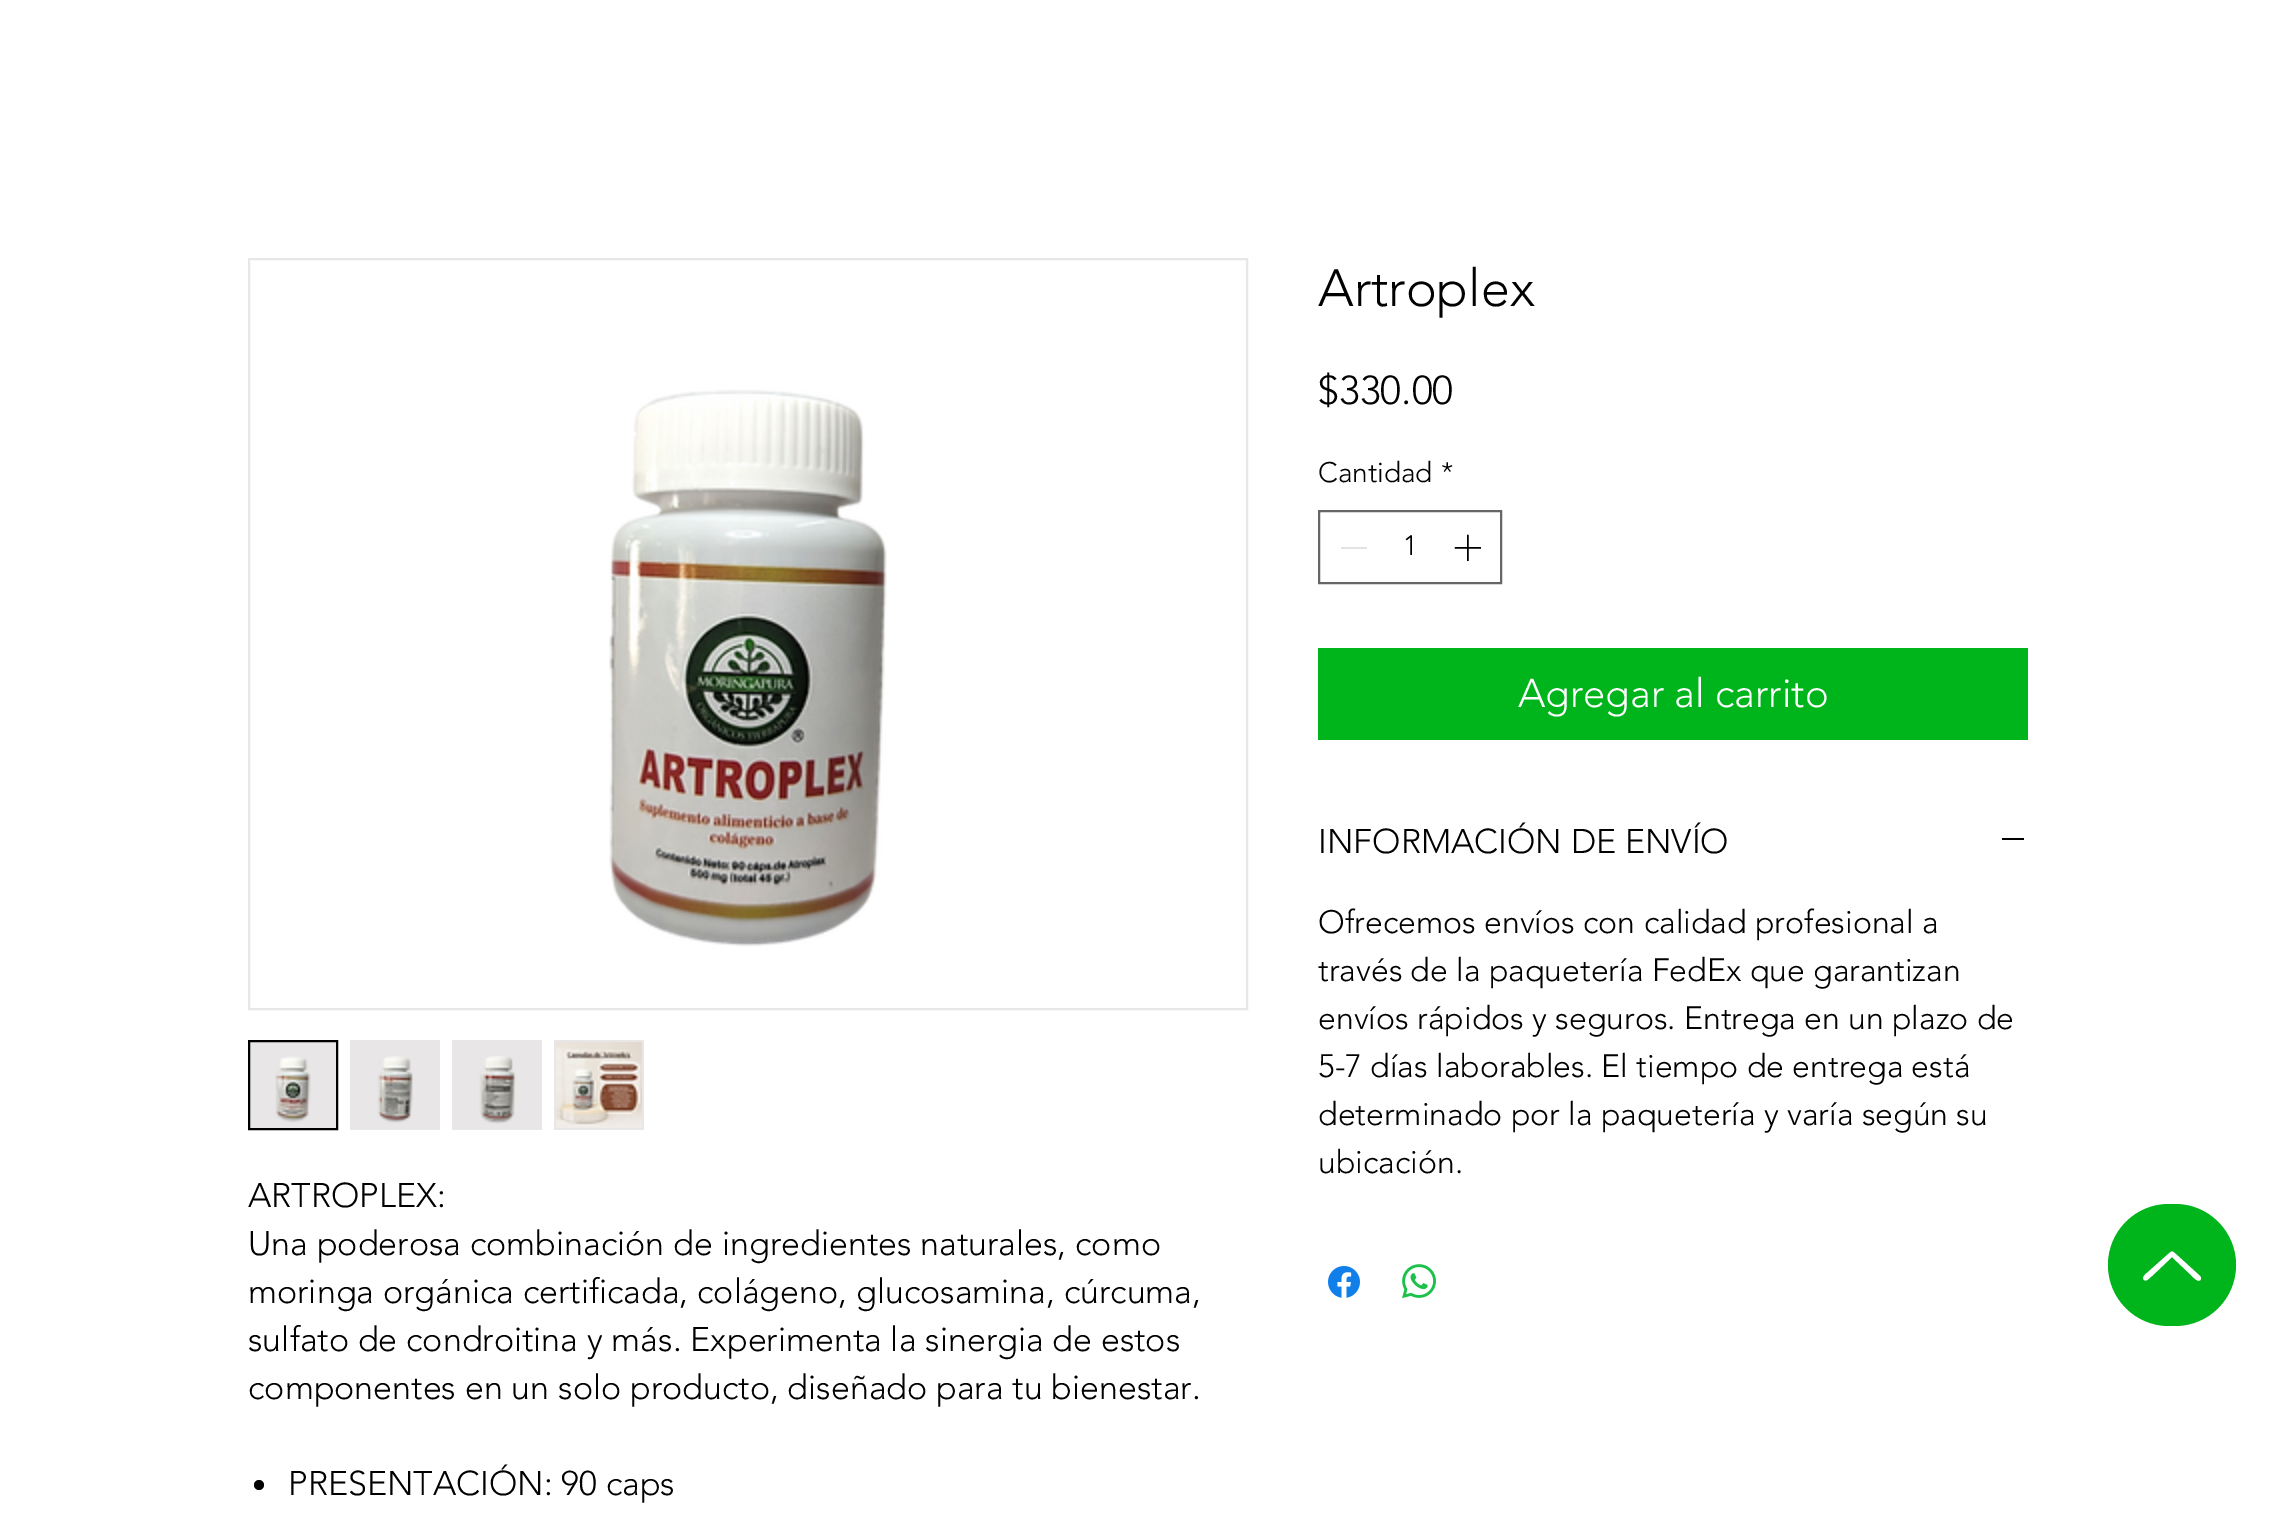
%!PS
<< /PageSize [2276 1515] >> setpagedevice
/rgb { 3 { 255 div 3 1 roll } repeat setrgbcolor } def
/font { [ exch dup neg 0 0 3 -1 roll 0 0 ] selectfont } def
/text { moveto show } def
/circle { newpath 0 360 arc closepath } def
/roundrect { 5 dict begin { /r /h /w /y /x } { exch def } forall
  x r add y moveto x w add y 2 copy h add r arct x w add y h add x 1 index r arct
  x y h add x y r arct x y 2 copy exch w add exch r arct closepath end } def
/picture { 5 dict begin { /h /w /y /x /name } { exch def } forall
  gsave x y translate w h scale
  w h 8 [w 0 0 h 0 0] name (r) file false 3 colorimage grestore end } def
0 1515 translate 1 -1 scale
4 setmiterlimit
255 255 255 rgb
0 0 2276 1515 rectfill
102 102 102 rgb
2 setlinewidth
1319 511 182 72 rectstroke
227 227 227 rgb
1341 547 26 2 rectfill
(img_01.rgb) 1454 534 27 27 picture
0 181 28 rgb
1318 648 710 92 rectfill
0 0 0 rgb
2002 838 22 2 rectfill
(img_02.rgb) 1328 1266 32 32 picture
(img_03.rgb) 1402 1264 34 35 picture
232 230 230 rgb
249 259 998 750 rectstroke
(img_04.rgb) 609 389 278 558 picture
249 1041 moveto 88 0 rlineto 0 88 rlineto -88 0 rlineto closepath gsave fill grestore
0 0 0 rgb
stroke
(img_05.rgb) 275 1056 36 67 picture
232 230 230 rgb
350 1040 90 90 rectfill
(img_06.rgb) 377 1056 36 67 picture
452 1040 90 90 rectfill
(img_07.rgb) 479 1056 37 68 picture
554 1040 90 90 rectfill
(img_08.rgb) 556 1042 86 86 picture
0 0 0 rgb
259 1485 5 circle fill
0 181 28 rgb
2108 1204 128 122 61 roundrect fill
255 255 255 rgb
2200 1276 moveto -22 -20 rlineto -7 -6 -5 -6 -12 0 rcurveto -18 16 rlineto -1 1 -7 5 -4 8 rcurveto 3 2 6 -3 8 -4 rcurveto 20 -19 rlineto 20 19 rlineto 1 1 7 8 9 3 rcurveto 0 -1 0 -2 -1 -3 rcurveto closepath fill
/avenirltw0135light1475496-Light 52 font
0 0 0 rgb
(Artroplex) 1318 306 text
/avenirltw0135light1475496-Light 40 font
($330.00) 1318 404 text
/avenirltw0135light1475496-Light 28 font
(Cantidad) 1318 482 text
(*) 1441 482 text
(1) 1403 555 text
/avenirltw0135light1475496-Light 40 font
255 255 255 rgb
(Agregar al carrito) 1518 707 text
/avenirltw0135light1475496-Light 34 font
0 0 0 rgb
(INFORMACIÓN DE ENVÍO) 1318 853 text
/avenirltw0135light1475496-Light 32 font
(Ofrecemos envíos con calidad profesional a) 1318 933 text
(través de la paquetería FedEx que garantizan) 1318 981 text
(envíos rápidos y seguros. Entrega en un plazo de) 1318 1029 text
(5-7 días laborables. El tiempo de entrega está) 1318 1077 text
(determinado por la paquetería y varía según su) 1318 1125 text
(ubicación.) 1318 1173 text
/avenirltw0135light1475496-Light 34 font
(ARTROPLEX:) 248 1207 text
(Una poderosa combinación de ingredientes naturales, como) 248 1255 text
(moringa orgánica certificada, colágeno, glucosamina, cúrcuma,) 248 1303 text
(sulfato de condroitina y más. Experimenta la sinergia de estos) 248 1351 text
(componentes en un solo producto, diseñado para tu bienestar.) 248 1399 text
(PRESENTACIÓN: 90 caps) 288 1495 text
showpage
